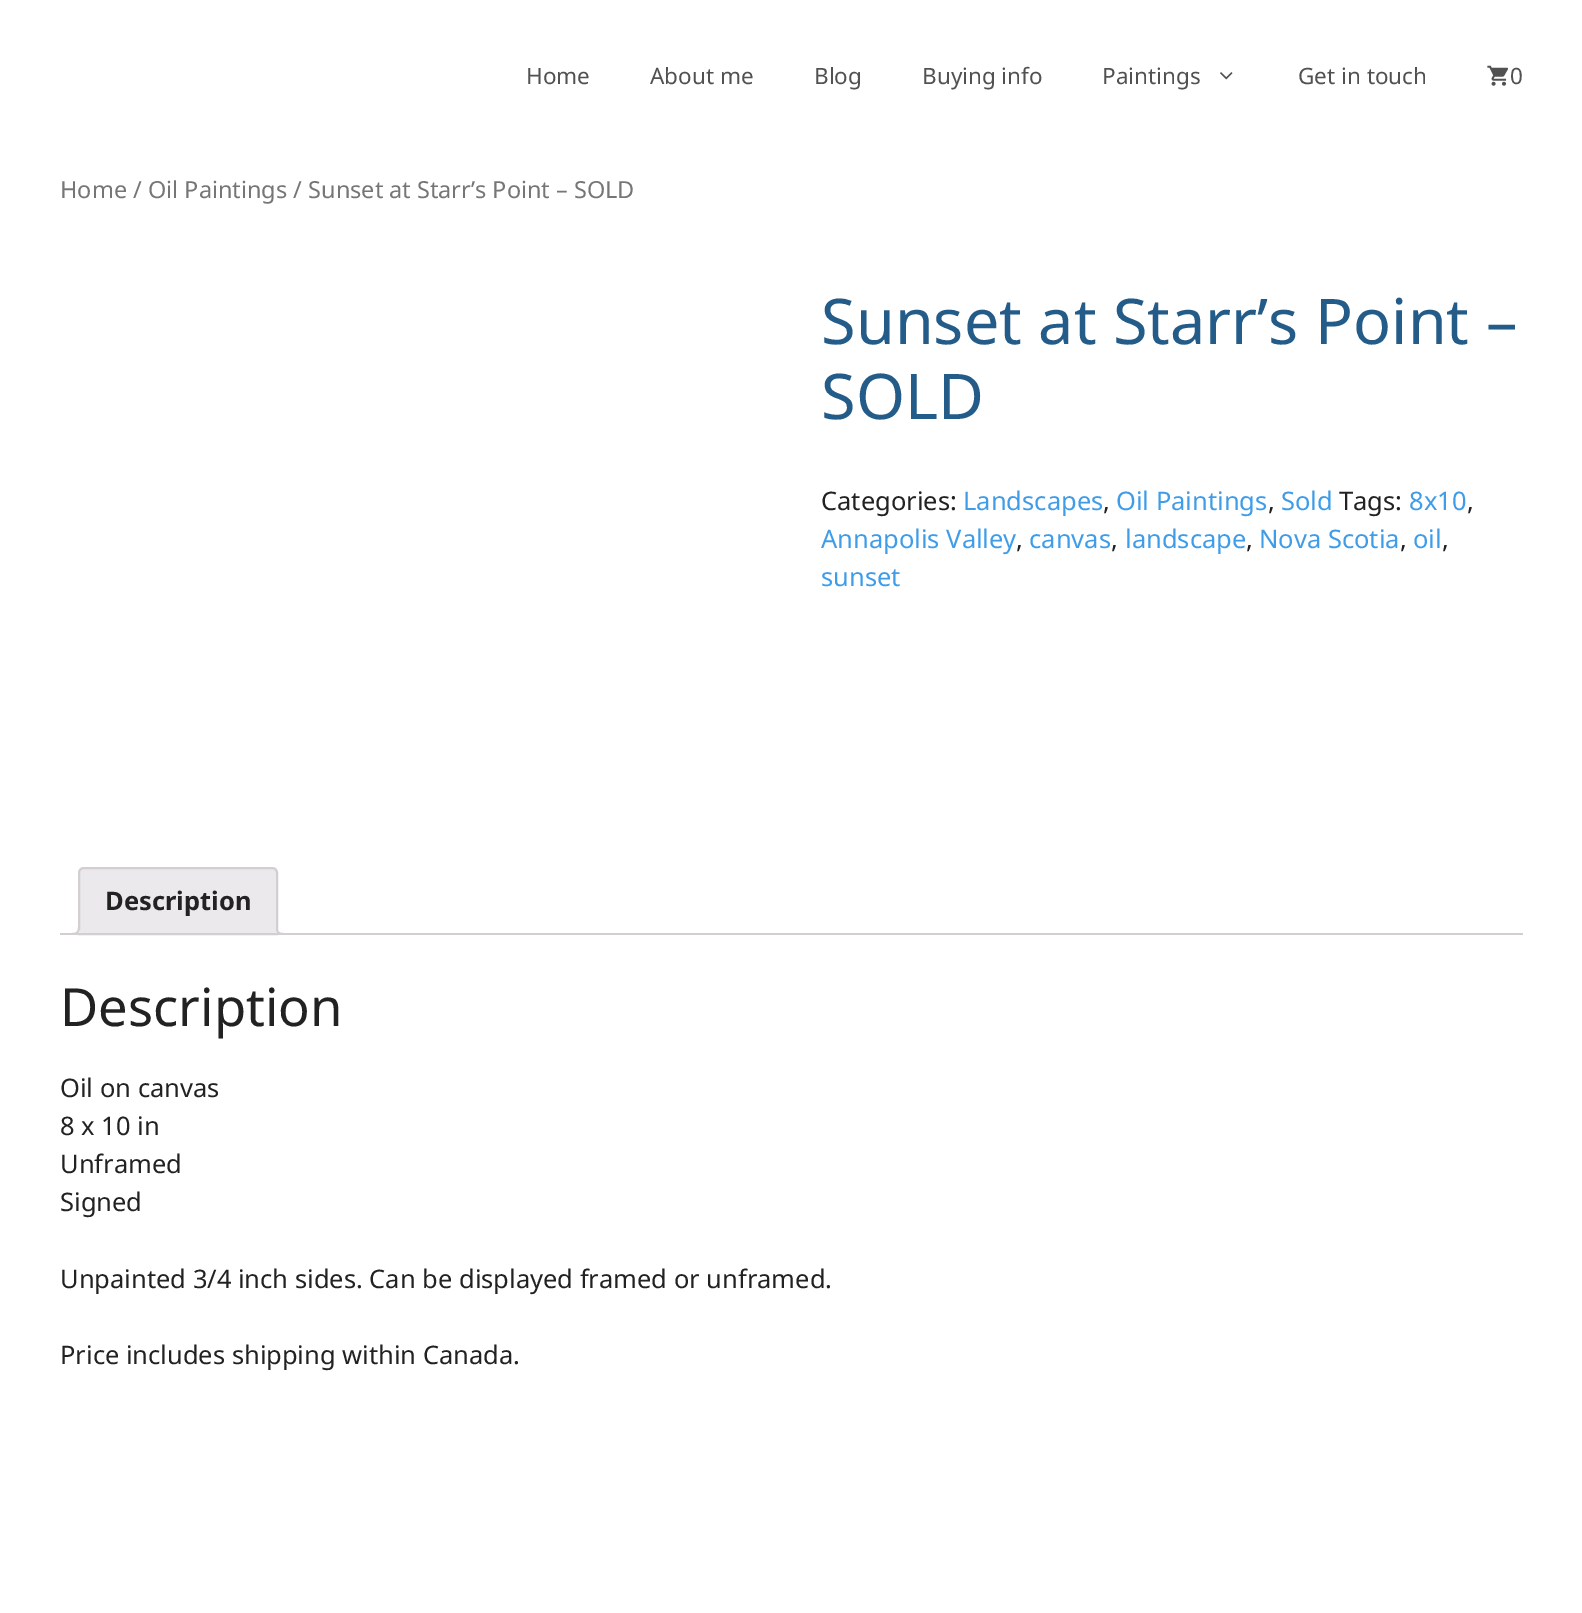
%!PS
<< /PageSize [1582 1613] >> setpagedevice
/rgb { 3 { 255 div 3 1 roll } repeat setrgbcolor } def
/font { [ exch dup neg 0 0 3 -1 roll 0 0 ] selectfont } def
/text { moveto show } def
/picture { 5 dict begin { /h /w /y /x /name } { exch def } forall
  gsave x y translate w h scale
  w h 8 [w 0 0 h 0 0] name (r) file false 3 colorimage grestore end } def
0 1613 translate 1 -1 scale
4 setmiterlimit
255 255 255 rgb
0 0 1582 1613 rectfill
(img_01.rgb) 1220 72 13 8 picture
(img_02.rgb) 1487 65 22 21 picture
235 233 235 rgb
84 868 moveto 188 0 rlineto 3 0 5 2 5 5 rcurveto 0 61 rlineto -198 0 rlineto 0 -61 rlineto 0 -3 2 -5 5 -5 rcurveto closepath gsave fill grestore
211 206 210 rgb
2 setlinewidth
stroke
gsave
60 867 1463 68 rectclip
235 233 235 rgb
75 934.5 moveto 0 3.5 rlineto 6 0 8 -2 8 -8 rcurveto -3.5 0 rlineto -0.5 2 -2.5 4 -4.5 4.5 rcurveto closepath fill
grestore
72 927 moveto 7.5 0 rlineto 0 5.5 -2 7.5 -7.5 7.5 rcurveto closepath 72 927 moveto 6 0 rlineto 0 4.5 -1.5 6 -6 6 rcurveto closepath eofill
gsave
60 867 1463 68 rectclip
235 233 235 rgb
273 930 moveto 0 6 2 8 8 8 rcurveto 0 -3.5 rlineto -2.5 -0.5 -4 -2 -5 -4.5 rcurveto closepath fill
grestore
276 927 moveto 7.5 0 rlineto 0 7.5 rlineto -4 0 -7.5 -1.5 -7.5 -6 rcurveto closepath 277.5 927 moveto 6 0 rlineto 0 6 rlineto -3 0 -6 -1 -6 -4.5 rcurveto closepath eofill
60 933 1463 2 rectfill
/NotoSans-Regular 22.5 font
81 81 81 rgb
(Home) 526 84 text
(About me) 650 84 text
(Blog) 814 84 text
(Buying info) 922 84 text
(Paintings) 1102 84 text
(Get in touch) 1298 84 text
(0) 1510 84 text
/NotoSans-Regular 23.5 font
118 118 118 rgb
(Home / Oil Paintings / Sunset at Starr’s Point – SOLD) 60 198 text
/NotoSans-Regular 63 font
36 92 137 rgb
(Sunset at Starr’s Point –) 821 344 text
(SOLD) 821 419 text
/NotoSans-Regular 25.5 font
34 34 34 rgb
(Categories:) 821 510 text
63 156 232 rgb
(Landscapes) 963 510 text
34 34 34 rgb
(,) 1103 510 text
63 156 232 rgb
(Oil Paintings) 1116 510 text
34 34 34 rgb
(,) 1268 510 text
63 156 232 rgb
(Sold) 1281 510 text
34 34 34 rgb
(Tags:) 1339 510 text
63 156 232 rgb
(8x10) 1409 510 text
34 34 34 rgb
(,) 1467 510 text
63 156 232 rgb
(Annapolis Valley) 821 548 text
34 34 34 rgb
(,) 1016 548 text
63 156 232 rgb
(canvas) 1029 548 text
34 34 34 rgb
(,) 1111 548 text
63 156 232 rgb
(landscape) 1125 548 text
34 34 34 rgb
(,) 1246 548 text
63 156 232 rgb
(Nova Scotia) 1259 548 text
34 34 34 rgb
(,) 1400 548 text
63 156 232 rgb
(oil) 1413 548 text
34 34 34 rgb
(,) 1442 548 text
63 156 232 rgb
(sunset) 821 586 text
/NotoSans-Bold 25.5 font
34 34 34 rgb
(Description) 105 910 text
/NotoSans-Regular 52.5 font
(Description) 60 1026 text
/NotoSans-Regular 25.5 font
(Oil on canvas) 60 1097 text
(8 x 10 in) 60 1135 text
(Unframed) 60 1173 text
(Signed) 60 1211 text
(Unpainted 3/4 inch sides. Can be displayed framed or unframed.) 60 1288 text
(Price includes shipping within Canada.) 60 1364 text
showpage
